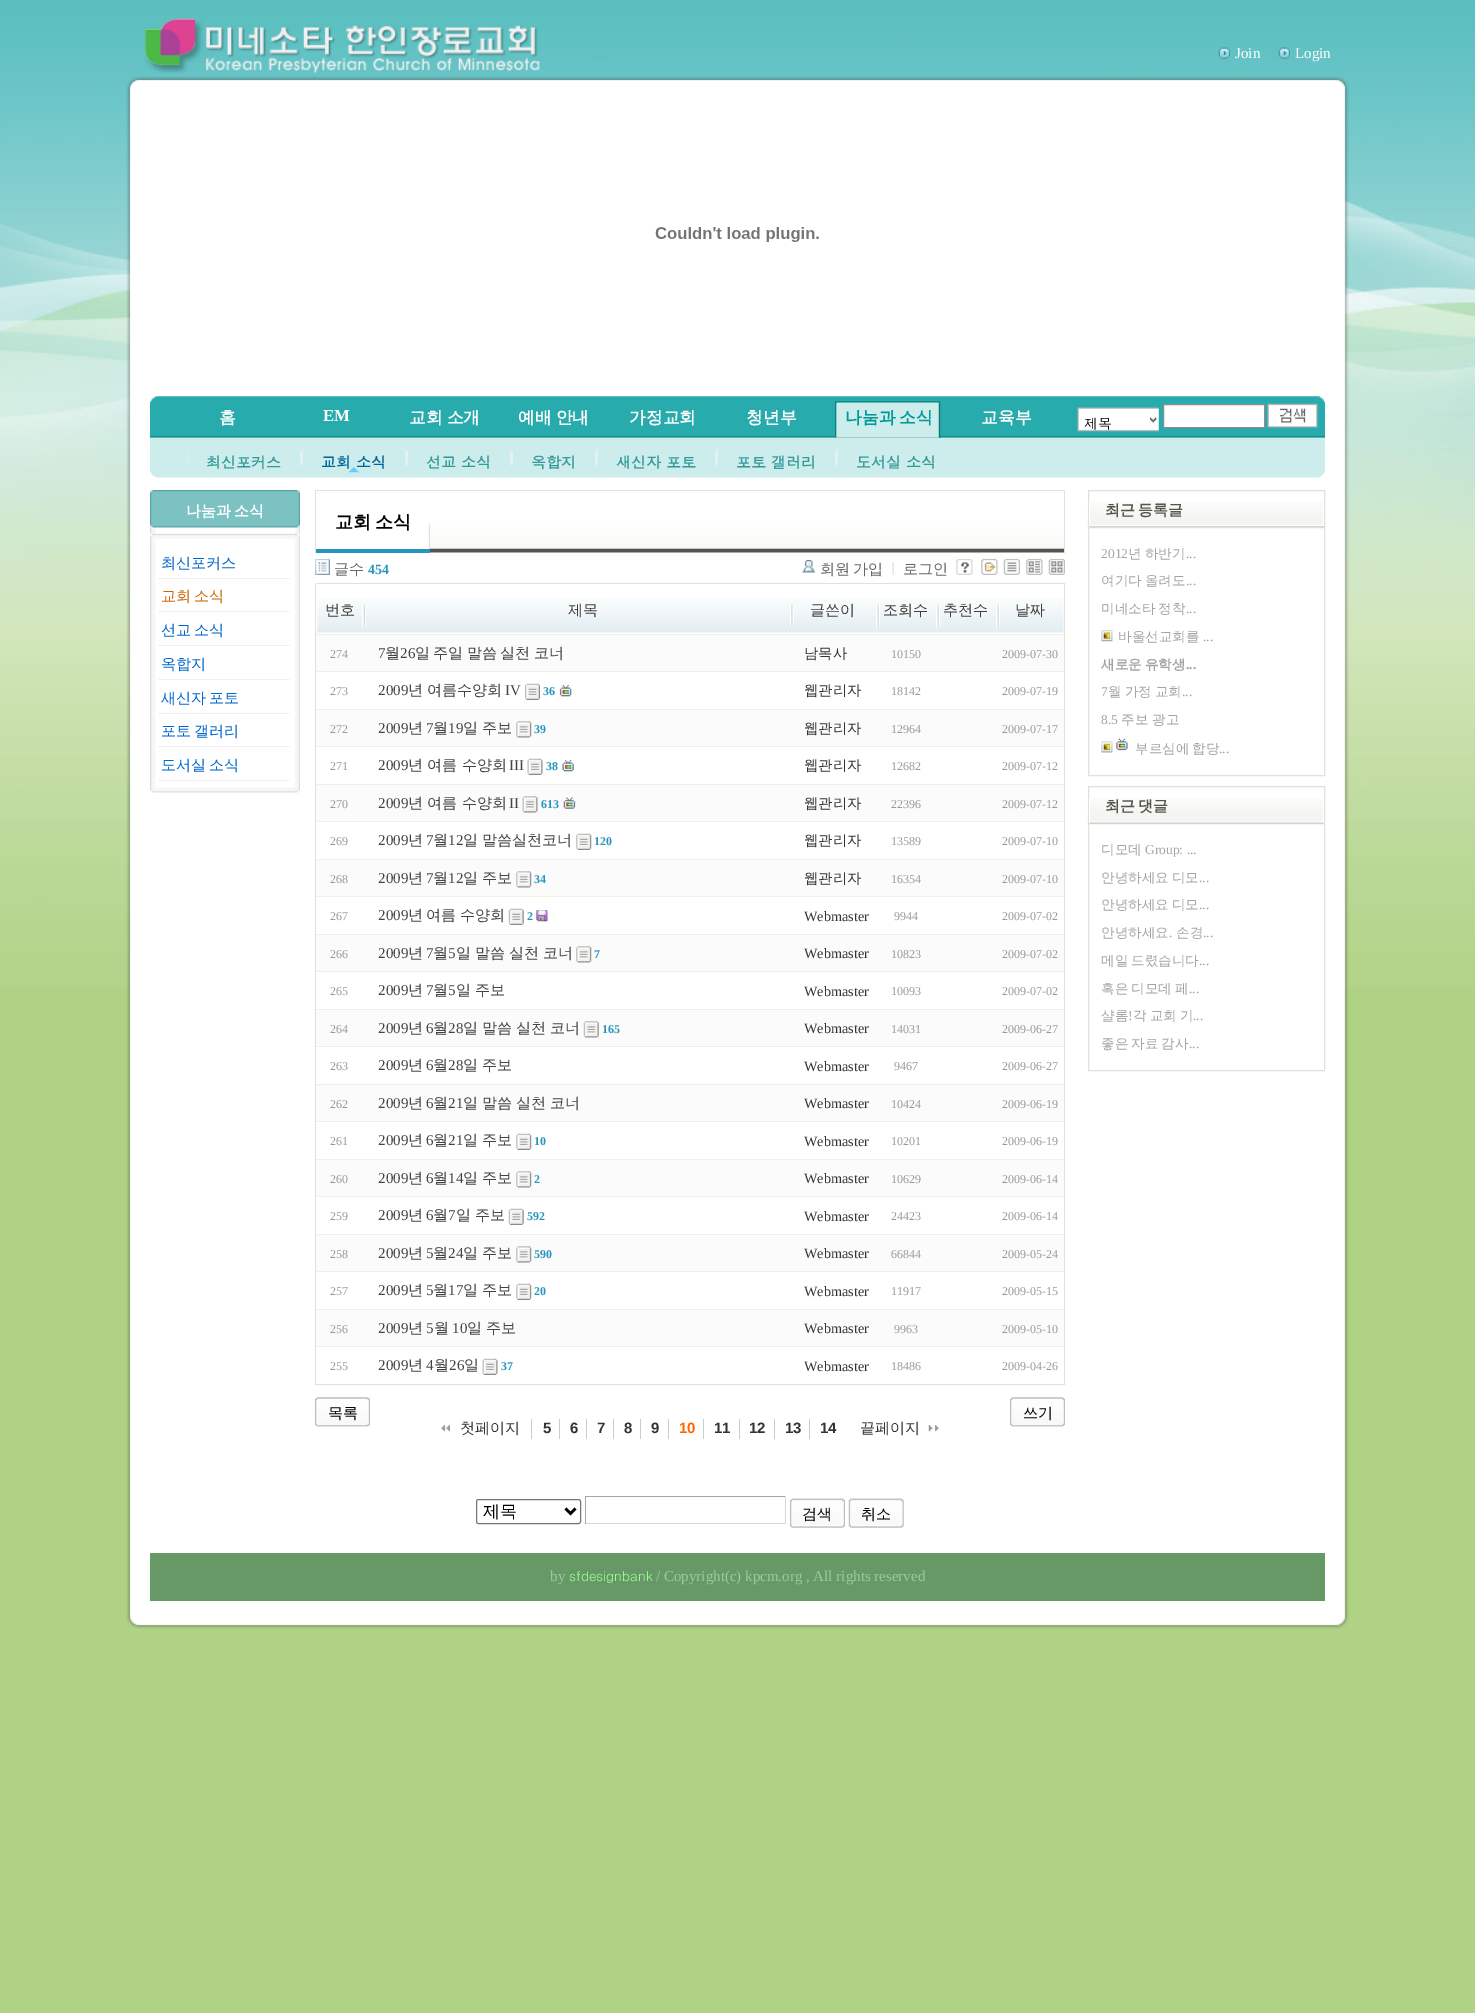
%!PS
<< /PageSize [1475 2013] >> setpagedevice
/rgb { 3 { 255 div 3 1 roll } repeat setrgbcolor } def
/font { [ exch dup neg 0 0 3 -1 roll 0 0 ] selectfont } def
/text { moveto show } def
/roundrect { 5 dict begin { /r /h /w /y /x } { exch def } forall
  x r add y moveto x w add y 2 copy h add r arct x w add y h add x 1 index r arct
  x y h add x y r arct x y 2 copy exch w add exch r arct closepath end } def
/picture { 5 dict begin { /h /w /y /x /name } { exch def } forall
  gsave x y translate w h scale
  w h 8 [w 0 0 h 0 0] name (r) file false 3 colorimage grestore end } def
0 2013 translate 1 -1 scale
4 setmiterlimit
175 210 133 rgb
0 0 1475 2013 rectfill
(img_01.rgb) 0 0 1475 987 picture
(img_02.rgb) 144 18 396 55 picture
(img_03.rgb) 1218 47 12 12 picture
(img_04.rgb) 1278 47 12 12 picture
(img_05.rgb) 126 76 1223 14 picture
(img_06.rgb) 126 90 1223 1525 picture
(img_07.rgb) 655 227 164 15 picture
(img_08.rgb) 150 396 1175 82 picture
(img_09.rgb) 835 401 107 37 picture
(img_10.rgb) 1077 407 82 25 picture
255 255 255 rgb
1163.5 404.5 moveto 101 0 rlineto 0 23 rlineto -101 0 rlineto closepath gsave fill grestore
142 142 141 rgb
stroke
(img_11.rgb) 1267 403 51 25 picture
(img_12.rgb) 187 451 1 14 picture
229 241 241 rgb
300 451 3 14 rectfill
(img_13.rgb) 348 467 11 6 picture
405 451 3 14 rectfill
510 451 3 14 rectfill
595 451 3 14 rectfill
715 451 3 14 rectfill
835 451 3 14 rectfill
(img_14.rgb) 150 490 150 298 picture
(img_15.rgb) 150 490 150 38 picture
(img_16.rgb) 150 533 150 6 picture
240 240 240 rgb
158 578 132 1 rectfill
158 611 132 1 rectfill
158 645 132 1 rectfill
158 679 132 1 rectfill
158 713 132 1 rectfill
158 746 132 1 rectfill
158 780 132 1 rectfill
(img_17.rgb) 150 787 150 6 picture
(img_18.rgb) 430 491 634 62 picture
225 225 221 rgb
315 490 750 1 rectfill
1064 490 1 63 rectfill
315 490 1 63 rectfill
(img_19.rgb) 428 523 2 26 picture
40 149 192 rgb
316 549 114 4 rectfill
(img_20.rgb) 315 558 15 17 picture
(img_21.rgb) 802 560 13 13 picture
(img_22.rgb) 892 562 2 13 picture
(img_23.rgb) 956 559 17 16 picture
(img_24.rgb) 981 558 17 17 picture
(img_25.rgb) 1003 558 17 17 picture
(img_26.rgb) 1026 558 17 17 picture
(img_27.rgb) 1048 558 17 17 picture
224 225 219 rgb
1064 583 1 802 rectfill
315 1384 750 1 rectfill
315 583 1 802 rectfill
(img_28.rgb) 317 598 46 35 picture
316 583 748 1 rectfill
255 255 255 rgb
316 583 1 1 rectfill
(img_29.rgb) 362 598 428 35 picture
(img_30.rgb) 790 598 86 35 picture
(img_31.rgb) 876 598 60 35 picture
(img_31.rgb) 936 598 60 35 picture
(img_32.rgb) 996 598 68 35 picture
251 251 251 rgb
316 635 748 36 rectfill
239 240 237 rgb
316 634 748 1 rectfill
316 671 748 1 rectfill
(img_33.rgb) 525 683 15 17 picture
(img_34.rgb) 559 684 13 13 picture
251 251 251 rgb
316 710 748 36 rectfill
239 240 237 rgb
316 709 748 1 rectfill
(img_35.rgb) 516 721 16 17 picture
316 746 748 1 rectfill
(img_36.rgb) 527 758 16 17 picture
(img_37.rgb) 562 759 12 13 picture
251 251 251 rgb
316 785 748 36 rectfill
239 240 237 rgb
316 784 748 1 rectfill
(img_38.rgb) 522 796 16 17 picture
(img_39.rgb) 563 797 13 12 picture
316 821 748 1 rectfill
(img_40.rgb) 576 833 16 17 picture
251 251 251 rgb
316 860 748 36 rectfill
239 240 237 rgb
316 859 748 1 rectfill
(img_35.rgb) 516 871 16 17 picture
316 896 748 1 rectfill
(img_41.rgb) 508 908 16 17 picture
(img_42.rgb) 536 910 12 12 picture
251 251 251 rgb
316 935 748 36 rectfill
239 240 237 rgb
316 934 748 1 rectfill
(img_35.rgb) 576 946 16 17 picture
316 971 748 1 rectfill
251 251 251 rgb
316 1010 748 36 rectfill
239 240 237 rgb
316 1009 748 1 rectfill
(img_43.rgb) 583 1021 16 17 picture
316 1046 748 1 rectfill
251 251 251 rgb
316 1085 748 36 rectfill
239 240 237 rgb
316 1084 748 1 rectfill
316 1121 748 1 rectfill
(img_40.rgb) 516 1133 16 17 picture
251 251 251 rgb
316 1160 748 36 rectfill
239 240 237 rgb
316 1159 748 1 rectfill
(img_44.rgb) 516 1171 16 17 picture
316 1196 748 1 rectfill
(img_41.rgb) 508 1208 16 17 picture
251 251 251 rgb
316 1235 748 36 rectfill
239 240 237 rgb
316 1234 748 1 rectfill
(img_35.rgb) 516 1246 16 17 picture
316 1271 748 1 rectfill
(img_40.rgb) 516 1283 16 17 picture
251 251 251 rgb
316 1310 748 36 rectfill
239 240 237 rgb
316 1309 748 1 rectfill
316 1346 748 1 rectfill
(img_36.rgb) 482 1358 16 17 picture
(img_45.rgb) 315 1397 53 30 picture
(img_46.rgb) 317 1397 53 30 picture
(img_47.rgb) 1010 1397 53 30 picture
(img_48.rgb) 1012 1397 53 30 picture
(img_49.rgb) 441 1425 9 7 picture
204 204 204 rgb
531 1419 1 20 rectfill
559 1419 1 20 rectfill
586 1419 1 20 rectfill
613 1419 1 20 rectfill
640 1419 1 20 rectfill
668 1419 1 20 rectfill
703 1419 1 20 rectfill
739 1419 1 20 rectfill
774 1419 1 20 rectfill
809 1419 1 20 rectfill
(img_50.rgb) 928 1425 11 7 picture
118 118 118 rgb
476.5 1499.5 104 24 2 roundrect stroke
0 0 0 rgb
2.5 setlinewidth
565.5 1508.5 moveto 5 5 rlineto 5 -5 rlineto stroke
166 166 166 rgb
585 1496 201 1 rectfill
216 216 216 rgb
785 1496 1 28 rectfill
585 1523 201 1 rectfill
166 166 166 rgb
585 1496 1 28 rectfill
(img_51.rgb) 790 1498 53 30 picture
(img_52.rgb) 792 1498 53 30 picture
(img_53.rgb) 848 1498 54 30 picture
(img_54.rgb) 851 1498 53 30 picture
(img_55.rgb) 1087 501 237 28 picture
224 225 219 rgb
1 setlinewidth
1088.5 490.5 236 285 rectstroke
255 255 255 rgb
1323 501 1 25 rectfill
1089 501 1 25 rectfill
(img_56.rgb) 1101 630 12 12 picture
(img_57.rgb) 1101 741 12 12 picture
(img_58.rgb) 1116 738 12 13 picture
(img_59.rgb) 1087 798 237 27 picture
224 225 219 rgb
1088.5 786.5 236 284 rectstroke
255 255 255 rgb
1323 798 1 25 rectfill
1089 798 1 25 rectfill
102 153 102 rgb
150 1553 1175 48 rectfill
(img_60.rgb) 126 1615 1223 14 picture
/LiberationSerif-Regular 15 font
255 255 255 rgb
(Join) 1235 58 text
(Login) 1295 58 text
/WenQuanYiZenHei-Bold 16.75 font
(홈) 219 423 text
/LiberationSerif-Bold 16.75 font
(EM) 323 421 text
/WenQuanYiZenHei-Bold 16.75 font
409 423 moveto -1 0 32 (교회 소개) widthshow
518 423 moveto -1 0 32 (예배 안내) widthshow
(가정교회) 629 423 text
(청년부) 746 423 text
0 153 153 rgb
845 423 moveto -1 0 32 (나눔과 소식) widthshow
255 255 255 rgb
(교육부) 981 423 text
/Dotum-Regular 14 font
0 0 0 rgb
(제목) 1084 429 text
/Dotum-Bold 15 font
51 153 153 rgb
(최신포커스) 206 468 text
0 102 153 rgb
(교회 소식) 321 468 text
51 153 153 rgb
(선교 소식) 426 468 text
(옥합지) 531 468 text
(새신자 포토) 616 468 text
(포토 갤러리) 736 468 text
(도서실 소식) 856 468 text
/WenQuanYiZenHei-Bold 15 font
255 255 255 rgb
186 516 moveto -1 0 32 (나눔과 소식) widthshow
/WenQuanYiZenHei-Medium 15 font
0 102 204 rgb
(최신포커스) 161 568 text
204 102 0 rgb
161 601 moveto -1 0 32 (교회 소식) widthshow
0 102 204 rgb
161 635 moveto -1 0 32 (선교 소식) widthshow
(옥합지) 161 669 text
161 703 moveto -1 0 32 (새신자 포토) widthshow
161 736 moveto -1 0 32 (포토 갤러리) widthshow
161 770 moveto -1 0 32 (도서실 소식) widthshow
/WenQuanYiZenHei-Bold 18 font
0 0 0 rgb
335 528 moveto -1 0 32 (교회 소식) widthshow
/WenQuanYiZenHei-Medium 15 font
102 102 102 rgb
(글수) 334 574 text
/LiberationSerif-Bold 14 font
40 149 192 rgb
(454) 368 574 text
/WenQuanYiZenHei-Medium 15 font
102 102 102 rgb
820 574 moveto -1 0 32 (회원 가입) widthshow
(로그인) 903 574 text
62 63 62 rgb
(번호) 325 615 text
(제목) 568 615 text
(글쓴이) 810 615 text
(조회수) 883 615 text
(추천수) 943 615 text
(날짜) 1015 615 text
/LiberationSerif-Regular 12 font
153 153 153 rgb
(274) 330 658 text
/LiberationSerif-Regular 15 font
68 68 68 rgb
(7) 378 658 text
/WenQuanYiZenHei-Medium 15 font
(월) 385 658 text
/LiberationSerif-Regular 15 font
(26) 400 658 text
/WenQuanYiZenHei-Medium 15 font
415 658 moveto -1 0 32 (일 주일 말씀 실천 코너) widthshow
/WenQuanYiZenHei-Medium 14.25 font
51 51 51 rgb
(남목사) 804 658 text
/LiberationSerif-Regular 12 font
153 153 153 rgb
(10150) 891 658 text
(2009-07-30) 1002 658 text
(273) 330 695 text
/LiberationSerif-Regular 15 font
68 68 68 rgb
(2009) 378 695 text
/WenQuanYiZenHei-Medium 15 font
(년 여름수양회) 408 695 text
/LiberationSerif-Regular 15 font
(IV) 505 695 text
/LiberationSerif-Bold 12 font
40 149 192 rgb
(36) 543 695 text
/WenQuanYiZenHei-Medium 14.25 font
51 51 51 rgb
(웹관리자) 804 695 text
/LiberationSerif-Regular 12 font
153 153 153 rgb
(18142) 891 695 text
(2009-07-19) 1002 695 text
(272) 330 733 text
/LiberationSerif-Regular 15 font
68 68 68 rgb
(2009) 378 733 text
/WenQuanYiZenHei-Medium 15 font
(년) 408 733 text
/LiberationSerif-Regular 15 font
(7) 426 733 text
/WenQuanYiZenHei-Medium 15 font
(월) 433 733 text
/LiberationSerif-Regular 15 font
(19) 448 733 text
/WenQuanYiZenHei-Medium 15 font
(일 주보) 463 733 text
/LiberationSerif-Bold 12 font
40 149 192 rgb
(39) 534 733 text
/WenQuanYiZenHei-Medium 14.25 font
51 51 51 rgb
(웹관리자) 804 733 text
/LiberationSerif-Regular 12 font
153 153 153 rgb
(12964) 891 733 text
(2009-07-17) 1002 733 text
(271) 330 770 text
/LiberationSerif-Regular 15 font
68 68 68 rgb
(2009) 378 770 text
/WenQuanYiZenHei-Medium 15 font
(년 여름 수양회) 408 770 text
/LiberationSerif-Regular 15 font
(III) 509 770 text
/LiberationSerif-Bold 12 font
40 149 192 rgb
(38) 546 770 text
/WenQuanYiZenHei-Medium 14.25 font
51 51 51 rgb
(웹관리자) 804 770 text
/LiberationSerif-Regular 12 font
153 153 153 rgb
(12682) 891 770 text
(2009-07-12) 1002 770 text
(270) 330 808 text
/LiberationSerif-Regular 15 font
68 68 68 rgb
(2009) 378 808 text
/WenQuanYiZenHei-Medium 15 font
(년 여름 수양회) 408 808 text
/LiberationSerif-Regular 15 font
(II) 509 808 text
/LiberationSerif-Bold 12 font
40 149 192 rgb
(613) 541 808 text
/WenQuanYiZenHei-Medium 14.25 font
51 51 51 rgb
(웹관리자) 804 808 text
/LiberationSerif-Regular 12 font
153 153 153 rgb
(22396) 891 808 text
(2009-07-12) 1002 808 text
(269) 330 845 text
/LiberationSerif-Regular 15 font
68 68 68 rgb
(2009) 378 845 text
/WenQuanYiZenHei-Medium 15 font
(년) 408 845 text
/LiberationSerif-Regular 15 font
(7) 426 845 text
/WenQuanYiZenHei-Medium 15 font
(월) 433 845 text
/LiberationSerif-Regular 15 font
(12) 448 845 text
/WenQuanYiZenHei-Medium 15 font
(일 말씀실천코너) 463 845 text
/LiberationSerif-Bold 12 font
40 149 192 rgb
(120) 594 845 text
/WenQuanYiZenHei-Medium 14.25 font
51 51 51 rgb
(웹관리자) 804 845 text
/LiberationSerif-Regular 12 font
153 153 153 rgb
(13589) 891 845 text
(2009-07-10) 1002 845 text
(268) 330 883 text
/LiberationSerif-Regular 15 font
68 68 68 rgb
(2009) 378 883 text
/WenQuanYiZenHei-Medium 15 font
(년) 408 883 text
/LiberationSerif-Regular 15 font
(7) 426 883 text
/WenQuanYiZenHei-Medium 15 font
(월) 433 883 text
/LiberationSerif-Regular 15 font
(12) 448 883 text
/WenQuanYiZenHei-Medium 15 font
(일 주보) 463 883 text
/LiberationSerif-Bold 12 font
40 149 192 rgb
(34) 534 883 text
/WenQuanYiZenHei-Medium 14.25 font
51 51 51 rgb
(웹관리자) 804 883 text
/LiberationSerif-Regular 12 font
153 153 153 rgb
(16354) 891 883 text
(2009-07-10) 1002 883 text
(267) 330 920 text
/LiberationSerif-Regular 15 font
68 68 68 rgb
(2009) 378 920 text
/WenQuanYiZenHei-Medium 15 font
408 920 moveto -1 0 32 (년 여름 수양회) widthshow
/LiberationSerif-Bold 12 font
40 149 192 rgb
(2) 527 920 text
/LiberationSerif-Regular 14.25 font
51 51 51 rgb
(Webmaster) 804 921 text
/LiberationSerif-Regular 12 font
153 153 153 rgb
(9944) 894 920 text
(2009-07-02) 1002 920 text
(266) 330 958 text
/LiberationSerif-Regular 15 font
68 68 68 rgb
(2009) 378 958 text
/WenQuanYiZenHei-Medium 15 font
(년) 408 958 text
/LiberationSerif-Regular 15 font
(7) 426 958 text
/WenQuanYiZenHei-Medium 15 font
(월) 433 958 text
/LiberationSerif-Regular 15 font
(5) 448 958 text
/WenQuanYiZenHei-Medium 15 font
456 958 moveto -0.5 0 32 (일 말씀 실천 코너) widthshow
/LiberationSerif-Bold 12 font
40 149 192 rgb
(7) 594 958 text
/LiberationSerif-Regular 14.25 font
51 51 51 rgb
(Webmaster) 804 958 text
/LiberationSerif-Regular 12 font
153 153 153 rgb
(10823) 891 958 text
(2009-07-02) 1002 958 text
(265) 330 995 text
/LiberationSerif-Regular 15 font
68 68 68 rgb
(2009) 378 995 text
/WenQuanYiZenHei-Medium 15 font
(년) 408 995 text
/LiberationSerif-Regular 15 font
(7) 426 995 text
/WenQuanYiZenHei-Medium 15 font
(월) 433 995 text
/LiberationSerif-Regular 15 font
(5) 448 995 text
/WenQuanYiZenHei-Medium 15 font
(일 주보) 456 995 text
/LiberationSerif-Regular 14.25 font
51 51 51 rgb
(Webmaster) 804 996 text
/LiberationSerif-Regular 12 font
153 153 153 rgb
(10093) 891 995 text
(2009-07-02) 1002 995 text
(264) 330 1033 text
/LiberationSerif-Regular 15 font
68 68 68 rgb
(2009) 378 1033 text
/WenQuanYiZenHei-Medium 15 font
(년) 408 1033 text
/LiberationSerif-Regular 15 font
(6) 426 1033 text
/WenQuanYiZenHei-Medium 15 font
(월) 433 1033 text
/LiberationSerif-Regular 15 font
(28) 448 1033 text
/WenQuanYiZenHei-Medium 15 font
463 1033 moveto -0.5 0 32 (일 말씀 실천 코너) widthshow
/LiberationSerif-Bold 12 font
40 149 192 rgb
(165) 602 1033 text
/LiberationSerif-Regular 14.25 font
51 51 51 rgb
(Webmaster) 804 1033 text
/LiberationSerif-Regular 12 font
153 153 153 rgb
(14031) 891 1033 text
(2009-06-27) 1002 1033 text
(263) 330 1070 text
/LiberationSerif-Regular 15 font
68 68 68 rgb
(2009) 378 1070 text
/WenQuanYiZenHei-Medium 15 font
(년) 408 1070 text
/LiberationSerif-Regular 15 font
(6) 426 1070 text
/WenQuanYiZenHei-Medium 15 font
(월) 433 1070 text
/LiberationSerif-Regular 15 font
(28) 448 1070 text
/WenQuanYiZenHei-Medium 15 font
(일 주보) 463 1070 text
/LiberationSerif-Regular 14.25 font
51 51 51 rgb
(Webmaster) 804 1071 text
/LiberationSerif-Regular 12 font
153 153 153 rgb
(9467) 894 1070 text
(2009-06-27) 1002 1070 text
(262) 330 1108 text
/LiberationSerif-Regular 15 font
68 68 68 rgb
(2009) 378 1108 text
/WenQuanYiZenHei-Medium 15 font
(년) 408 1108 text
/LiberationSerif-Regular 15 font
(6) 426 1108 text
/WenQuanYiZenHei-Medium 15 font
(월) 433 1108 text
/LiberationSerif-Regular 15 font
(21) 448 1108 text
/WenQuanYiZenHei-Medium 15 font
463 1108 moveto -0.5 0 32 (일 말씀 실천 코너) widthshow
/LiberationSerif-Regular 14.25 font
51 51 51 rgb
(Webmaster) 804 1108 text
/LiberationSerif-Regular 12 font
153 153 153 rgb
(10424) 891 1108 text
(2009-06-19) 1002 1108 text
(261) 330 1145 text
/LiberationSerif-Regular 15 font
68 68 68 rgb
(2009) 378 1145 text
/WenQuanYiZenHei-Medium 15 font
(년) 408 1145 text
/LiberationSerif-Regular 15 font
(6) 426 1145 text
/WenQuanYiZenHei-Medium 15 font
(월) 433 1145 text
/LiberationSerif-Regular 15 font
(21) 448 1145 text
/WenQuanYiZenHei-Medium 15 font
(일 주보) 463 1145 text
/LiberationSerif-Bold 12 font
40 149 192 rgb
(10) 534 1145 text
/LiberationSerif-Regular 14.25 font
51 51 51 rgb
(Webmaster) 804 1146 text
/LiberationSerif-Regular 12 font
153 153 153 rgb
(10201) 891 1145 text
(2009-06-19) 1002 1145 text
(260) 330 1183 text
/LiberationSerif-Regular 15 font
68 68 68 rgb
(2009) 378 1183 text
/WenQuanYiZenHei-Medium 15 font
(년) 408 1183 text
/LiberationSerif-Regular 15 font
(6) 426 1183 text
/WenQuanYiZenHei-Medium 15 font
(월) 433 1183 text
/LiberationSerif-Regular 15 font
(14) 448 1183 text
/WenQuanYiZenHei-Medium 15 font
(일 주보) 463 1183 text
/LiberationSerif-Bold 12 font
40 149 192 rgb
(2) 534 1183 text
/LiberationSerif-Regular 14.25 font
51 51 51 rgb
(Webmaster) 804 1183 text
/LiberationSerif-Regular 12 font
153 153 153 rgb
(10629) 891 1183 text
(2009-06-14) 1002 1183 text
(259) 330 1220 text
/LiberationSerif-Regular 15 font
68 68 68 rgb
(2009) 378 1220 text
/WenQuanYiZenHei-Medium 15 font
(년) 408 1220 text
/LiberationSerif-Regular 15 font
(6) 426 1220 text
/WenQuanYiZenHei-Medium 15 font
(월) 433 1220 text
/LiberationSerif-Regular 15 font
(7) 448 1220 text
/WenQuanYiZenHei-Medium 15 font
(일 주보) 456 1220 text
/LiberationSerif-Bold 12 font
40 149 192 rgb
(592) 527 1220 text
/LiberationSerif-Regular 14.25 font
51 51 51 rgb
(Webmaster) 804 1221 text
/LiberationSerif-Regular 12 font
153 153 153 rgb
(24423) 891 1220 text
(2009-06-14) 1002 1220 text
(258) 330 1258 text
/LiberationSerif-Regular 15 font
68 68 68 rgb
(2009) 378 1258 text
/WenQuanYiZenHei-Medium 15 font
(년) 408 1258 text
/LiberationSerif-Regular 15 font
(5) 426 1258 text
/WenQuanYiZenHei-Medium 15 font
(월) 433 1258 text
/LiberationSerif-Regular 15 font
(24) 448 1258 text
/WenQuanYiZenHei-Medium 15 font
(일 주보) 463 1258 text
/LiberationSerif-Bold 12 font
40 149 192 rgb
(590) 534 1258 text
/LiberationSerif-Regular 14.25 font
51 51 51 rgb
(Webmaster) 804 1258 text
/LiberationSerif-Regular 12 font
153 153 153 rgb
(66844) 891 1258 text
(2009-05-24) 1002 1258 text
(257) 330 1295 text
/LiberationSerif-Regular 15 font
68 68 68 rgb
(2009) 378 1295 text
/WenQuanYiZenHei-Medium 15 font
(년) 408 1295 text
/LiberationSerif-Regular 15 font
(5) 426 1295 text
/WenQuanYiZenHei-Medium 15 font
(월) 433 1295 text
/LiberationSerif-Regular 15 font
(17) 448 1295 text
/WenQuanYiZenHei-Medium 15 font
(일 주보) 463 1295 text
/LiberationSerif-Bold 12 font
40 149 192 rgb
(20) 534 1295 text
/LiberationSerif-Regular 14.25 font
51 51 51 rgb
(Webmaster) 804 1296 text
/LiberationSerif-Regular 12 font
153 153 153 rgb
(11917) 891 1295 text
(2009-05-15) 1002 1295 text
(256) 330 1333 text
/LiberationSerif-Regular 15 font
68 68 68 rgb
(2009) 378 1333 text
/WenQuanYiZenHei-Medium 15 font
(년) 408 1333 text
/LiberationSerif-Regular 15 font
(5) 426 1333 text
/WenQuanYiZenHei-Medium 15 font
(월) 434 1333 text
/LiberationSerif-Regular 15 font
(10) 452 1333 text
/WenQuanYiZenHei-Medium 15 font
(일 주보) 467 1333 text
/LiberationSerif-Regular 14.25 font
51 51 51 rgb
(Webmaster) 804 1333 text
/LiberationSerif-Regular 12 font
153 153 153 rgb
(9963) 894 1333 text
(2009-05-10) 1002 1333 text
(255) 330 1370 text
/LiberationSerif-Regular 15 font
68 68 68 rgb
(2009) 378 1370 text
/WenQuanYiZenHei-Medium 15 font
(년) 408 1370 text
/LiberationSerif-Regular 15 font
(4) 426 1370 text
/WenQuanYiZenHei-Medium 15 font
(월) 434 1370 text
/LiberationSerif-Regular 15 font
(26) 449 1370 text
/WenQuanYiZenHei-Medium 15 font
(일) 464 1370 text
/LiberationSerif-Bold 12 font
40 149 192 rgb
(37) 501 1370 text
/LiberationSerif-Regular 14.25 font
51 51 51 rgb
(Webmaster) 804 1371 text
/LiberationSerif-Regular 12 font
153 153 153 rgb
(18486) 891 1370 text
(2009-04-26) 1002 1370 text
/WenQuanYiZenHei-Medium 15 font
0 0 0 rgb
(목록) 328 1418 text
(쓰기) 1023 1418 text
51 51 51 rgb
(첫페이지) 460 1433 text
/LiberationSans-Bold 15 font
(5) 543 1433 text
(6) 570 1433 text
(7) 597 1433 text
(8) 624 1433 text
(9) 651 1433 text
255 102 0 rgb
(10) 679 1433 text
51 51 51 rgb
(11) 714 1433 text
(12) 749 1433 text
(13) 785 1433 text
(14) 820 1433 text
/WenQuanYiZenHei-Medium 15 font
(끝페이지) 860 1433 text
/WenQuanYiZenHei-Medium 17 font
0 0 0 rgb
(제목) 483 1517 text
/WenQuanYiZenHei-Medium 15 font
(검색) 802 1519 text
(취소) 861 1519 text
/WenQuanYiZenHei-Bold 15 font
84 86 75 rgb
1105 515 moveto -1 0 32 (최근 등록글) widthshow
/LiberationSerif-Regular 13.5 font
164 164 164 rgb
(2012) 1101 558 text
/WenQuanYiZenHei-Medium 13.5 font
1128 558 moveto -1 0 32 (년 하반기) widthshow
/LiberationSerif-Regular 13.5 font
(...) 1186 558 text
/WenQuanYiZenHei-Medium 13.5 font
1101 585 moveto -1 0 32 (여기다 올려도) widthshow
/LiberationSerif-Regular 13.5 font
(...) 1186 585 text
/WenQuanYiZenHei-Medium 13.5 font
1101 613 moveto -1 0 32 (미네소타 정착) widthshow
/LiberationSerif-Regular 13.5 font
(...) 1186 613 text
/WenQuanYiZenHei-Medium 13.5 font
(바울선교회를) 1118 641 text
/LiberationSerif-Regular 13.5 font
(...) 1203 641 text
/WenQuanYiZenHei-Bold 13.5 font
1101 669 moveto -1 0 32 (새로운 유학생) widthshow
/LiberationSerif-Bold 13.5 font
(...) 1186 669 text
/LiberationSerif-Regular 13.5 font
(7) 1101 696 text
/WenQuanYiZenHei-Medium 13.5 font
1108 696 moveto -1 0 32 (월 가정 교회) widthshow
/LiberationSerif-Regular 13.5 font
(...) 1182 696 text
(8.5) 1101 724 text
/WenQuanYiZenHei-Medium 13.5 font
(주보 광고) 1121 724 text
1135 753 moveto -1 0 32 (부르심에 합당) widthshow
/LiberationSerif-Regular 13.5 font
(...) 1219 753 text
/WenQuanYiZenHei-Bold 15 font
84 86 75 rgb
1105 811 moveto -1 0 32 (최근 댓글) widthshow
/WenQuanYiZenHei-Medium 13.5 font
164 164 164 rgb
(디모데) 1101 854 text
/LiberationSerif-Regular 13.5 font
(Group: ...) 1145 854 text
/WenQuanYiZenHei-Medium 13.5 font
1101 882 moveto -1 0 32 (안녕하세요 디모) widthshow
/LiberationSerif-Regular 13.5 font
(...) 1199 882 text
/WenQuanYiZenHei-Medium 13.5 font
1101 909 moveto -1 0 32 (안녕하세요 디모) widthshow
/LiberationSerif-Regular 13.5 font
(...) 1199 909 text
/WenQuanYiZenHei-Medium 13.5 font
(안녕하세요) 1101 937 text
/LiberationSerif-Regular 13.5 font
(.) 1169 937 text
/WenQuanYiZenHei-Medium 13.5 font
(손경) 1176 937 text
/LiberationSerif-Regular 13.5 font
(...) 1203 937 text
/WenQuanYiZenHei-Medium 13.5 font
1101 965 moveto -1 0 32 (메일 드렸습니다) widthshow
/LiberationSerif-Regular 13.5 font
(...) 1199 965 text
/WenQuanYiZenHei-Medium 13.5 font
1101 993 moveto -1 0 32 (혹은 디모데 페) widthshow
/LiberationSerif-Regular 13.5 font
(...) 1189 993 text
/WenQuanYiZenHei-Medium 13.5 font
(샬롬) 1101 1020 text
/LiberationSerif-Regular 13.5 font
(!) 1128 1020 text
/WenQuanYiZenHei-Medium 13.5 font
1133 1020 moveto -1 0 32 (각 교회 기) widthshow
/LiberationSerif-Regular 13.5 font
(...) 1193 1020 text
/WenQuanYiZenHei-Medium 13.5 font
1101 1048 moveto -1 0 32 (좋은 자료 감사) widthshow
/LiberationSerif-Regular 13.5 font
(...) 1189 1048 text
/LiberationSerif-Regular 15 font
153 204 153 rgb
(by) 550 1581 text
/Dotum-Regular 13.5 font
153 255 153 rgb
(sfdesignbank) 569 1581 text
/LiberationSerif-Regular 15 font
153 204 153 rgb
(/ Copyright\(c\) kpcm.org , All rights reserved) 656 1581 text
showpage
